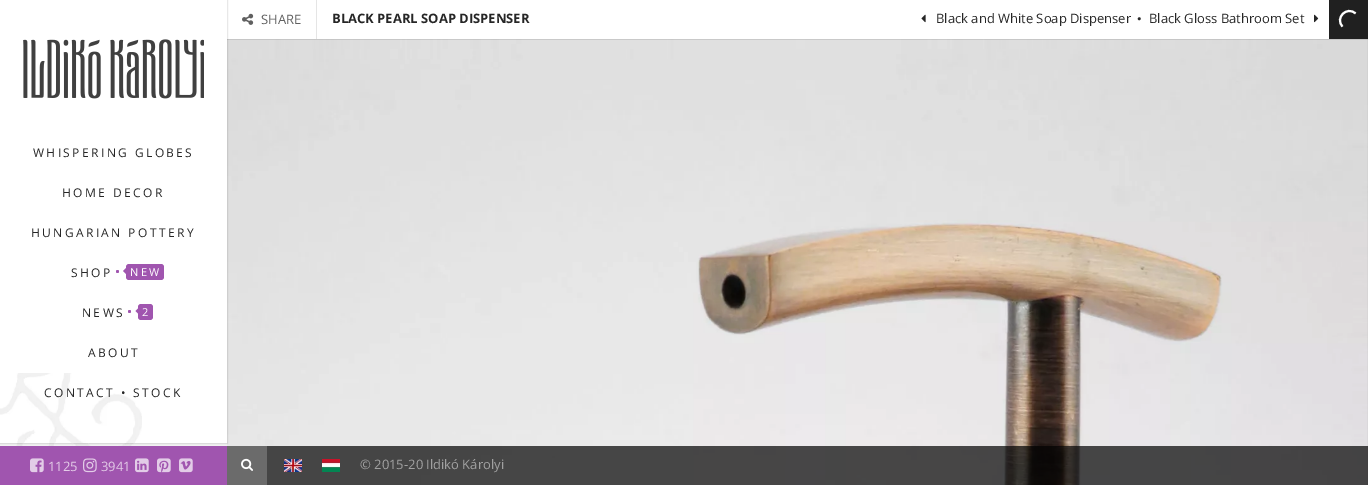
%!PS
<< /PageSize [1368 485] /PageUsesTransparency true >> setpagedevice
/rgb { 3 { 255 div 3 1 roll } repeat setrgbcolor } def
/font { [ exch dup neg 0 0 3 -1 roll 0 0 ] selectfont } def
/text { moveto show } def
/alpha { dup .setfillconstantalpha .setstrokeconstantalpha } def
/circle { newpath 0 360 arc closepath } def
/roundrect { 5 dict begin { /r /h /w /y /x } { exch def } forall
  x r add y moveto x w add y 2 copy h add r arct x w add y h add x 1 index r arct
  x y h add x y r arct x y 2 copy exch w add exch r arct closepath end } def
/picture { 5 dict begin { /h /w /y /x /name } { exch def } forall
  gsave x y translate w h scale
  w h 8 [w 0 0 h 0 0] name (r) file false 3 colorimage grestore end } def
0 .pushpdf14devicefilter
0 485 translate 1 -1 scale
4 setmiterlimit
241 241 241 rgb
0 0 1368 485 rectfill
(img_05.rgb) 1367 39 1 446 picture
(img_06.rgb) 227 39 1141 446 picture
0.1 alpha
0 0 0 rgb
227 39 1141 1 rectfill
1 alpha
255 255 255 rgb
227 0 1102 39 rectfill
229 229 229 rgb
316 0 1 39 rectfill
(img_01.rgb) 242 13 12 12 picture
(img_02.rgb) 921 14 5 9 picture
(img_03.rgb) 1314 14 5 9 picture
32 32 32 rgb
1329 0 39 39 rectfill
255 255 255 rgb
2 setlinewidth
1342.5 26.5 moveto -8 -8.5 4.5 -21 13 -13 rcurveto stroke
(img_04.rgb) 16 443 118 3 picture
0.09 alpha
0 0 0 rgb
1 setlinewidth
-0.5 -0.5 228 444 rectstroke
1 alpha
255 255 255 rgb
0 0 227 443 rectfill
(img_07.rgb) 0 373 142 70 picture
(img_08.rgb) 23 39 181 60 picture
160 85 175 rgb
126.5 267.5 moveto 3.5 3.5 rlineto -3.5 3.5 rlineto -3.5 -3.5 rlineto closepath fill
126 264 38 16 3 roundrect fill
117.5 271.5 1.5 circle fill
139 307.5 moveto 3.5 3.5 rlineto -3.5 3.5 rlineto -3.5 -3.5 rlineto closepath fill
138 304 15 16 3 roundrect fill
129.5 311.5 1.5 circle fill
0.7 alpha
0 0 0 rgb
267 446 1101 39 rectfill
1 alpha
160 85 175 rgb
0 446 227 39 rectfill
(img_09.rgb) 30 458 14 15 picture
(img_10.rgb) 83 458 14 15 picture
(img_11.rgb) 135 458 14 15 picture
(img_12.rgb) 157 458 14 15 picture
(img_13.rgb) 179 458 14 15 picture
107 107 107 rgb
227 446 40 39 rectfill
(img_14.rgb) 241 458 12 13 picture
(img_15.rgb) 284 459 18 13 picture
(img_16.rgb) 322 459 18 13 picture
/OpenSans-Regular 13 font
96 96 96 rgb
(SHARE) 261 24 text
/OpenSans-Bold 13 font
38 38 38 rgb
(BLACK PEARL SOAP DISPENSER) 332 23 text
/OpenSans-Regular 13 font
(Black and White Soap Dispenser) 936 23 text
/LiberationSerif-Regular 13 font
(•) 1137 23 text
/OpenSans-Regular 13 font
(Black Gloss Bathroom Set) 1149 23 text
/OpenSans-Regular 12 font
33 157 moveto 2.4 0 (WHISPERING GLOBES) ashow
62 197 moveto 2.4 0 (HOME DECOR) ashow
31 237 moveto 2.4 0 (HUNGARIAN POTTERY) ashow
71 277 moveto 2.4 0 (SHOP) ashow
/OpenSans-Regular 11 font
255 255 255 rgb
130 276 moveto 2.4 0 (NEW) ashow
/OpenSans-Regular 12 font
38 38 38 rgb
82 317 moveto 2.4 0 (NEWS) ashow
/OpenSans-Regular 11 font
255 255 255 rgb
142 316 moveto 2.4 0 (2) ashow
/OpenSans-Regular 12 font
38 38 38 rgb
88 357 moveto 2.4 0 (ABOUT) ashow
44 397 moveto 2.4 0 (CONTACT • STOCK) ashow
/OpenSans-Regular 13 font
227 204 231 rgb
(1125) 48 471 text
(3941) 101 471 text
161 161 161 rgb
(© 2015-20 Ildikó Károlyi) 360 469 text
.poppdf14devicefilter showpage
